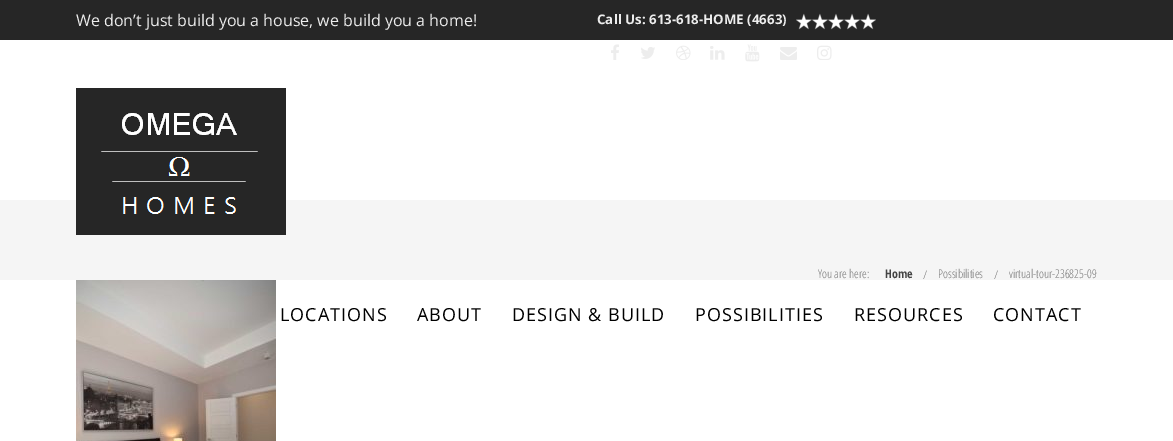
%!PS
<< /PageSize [1173 441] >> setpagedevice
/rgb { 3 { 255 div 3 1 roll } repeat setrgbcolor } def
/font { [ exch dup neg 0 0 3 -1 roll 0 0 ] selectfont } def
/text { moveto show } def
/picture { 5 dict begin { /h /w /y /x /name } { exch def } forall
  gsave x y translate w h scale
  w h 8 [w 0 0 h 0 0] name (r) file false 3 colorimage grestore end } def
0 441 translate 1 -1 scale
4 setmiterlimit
255 255 255 rgb
0 0 1173 441 rectfill
38 38 38 rgb
0 0 1173 40 rectfill
(img_01.rgb) 796 13 80 17 picture
(img_02.rgb) 611 44 8 16 picture
(img_03.rgb) 641 47 14 12 picture
(img_04.rgb) 676 45 15 15 picture
(img_05.rgb) 710 46 15 14 picture
(img_06.rgb) 745 44 15 18 picture
(img_07.rgb) 780 47 17 13 picture
(img_08.rgb) 817 45 15 15 picture
245 245 245 rgb
0 200 1173 80 rectfill
(img_09.rgb) 76 280 200 161 picture
(img_10.rgb) 76 88 210 147 picture
/OpenSans-Regular 16 font
237 237 237 rgb
(We don’t just build you a house, we build you a home!) 76 26 text
/OpenSans-Bold 13.3 font
(Call Us: 613-618-HOME \(4663\)) 597 24 text
/OpenSansCondensed-Light 12 font
121 121 121 rgb
(You are here:) 818 278 text
/OpenSansCondensed-Bold 12 font
68 68 68 rgb
(Home) 885 278 text
/OpenSansCondensed-Light 12 font
121 121 121 rgb
(/) 923 279 text
(Possibilities) 938 278 text
(/) 994 279 text
(virtual-tour-236825-09) 1009 278 text
/OpenSans-Regular 18 font
0 0 0 rgb
280 321 moveto 1 0 (LOCATIONS) ashow
417 321 moveto 1 0 (ABOUT) ashow
512 321 moveto 1 0 (DESIGN & BUILD) ashow
695 321 moveto 1 0 (POSSIBILITIES) ashow
854 321 moveto 1 0 (RESOURCES) ashow
993 321 moveto 1 0 (CONTACT) ashow
showpage
